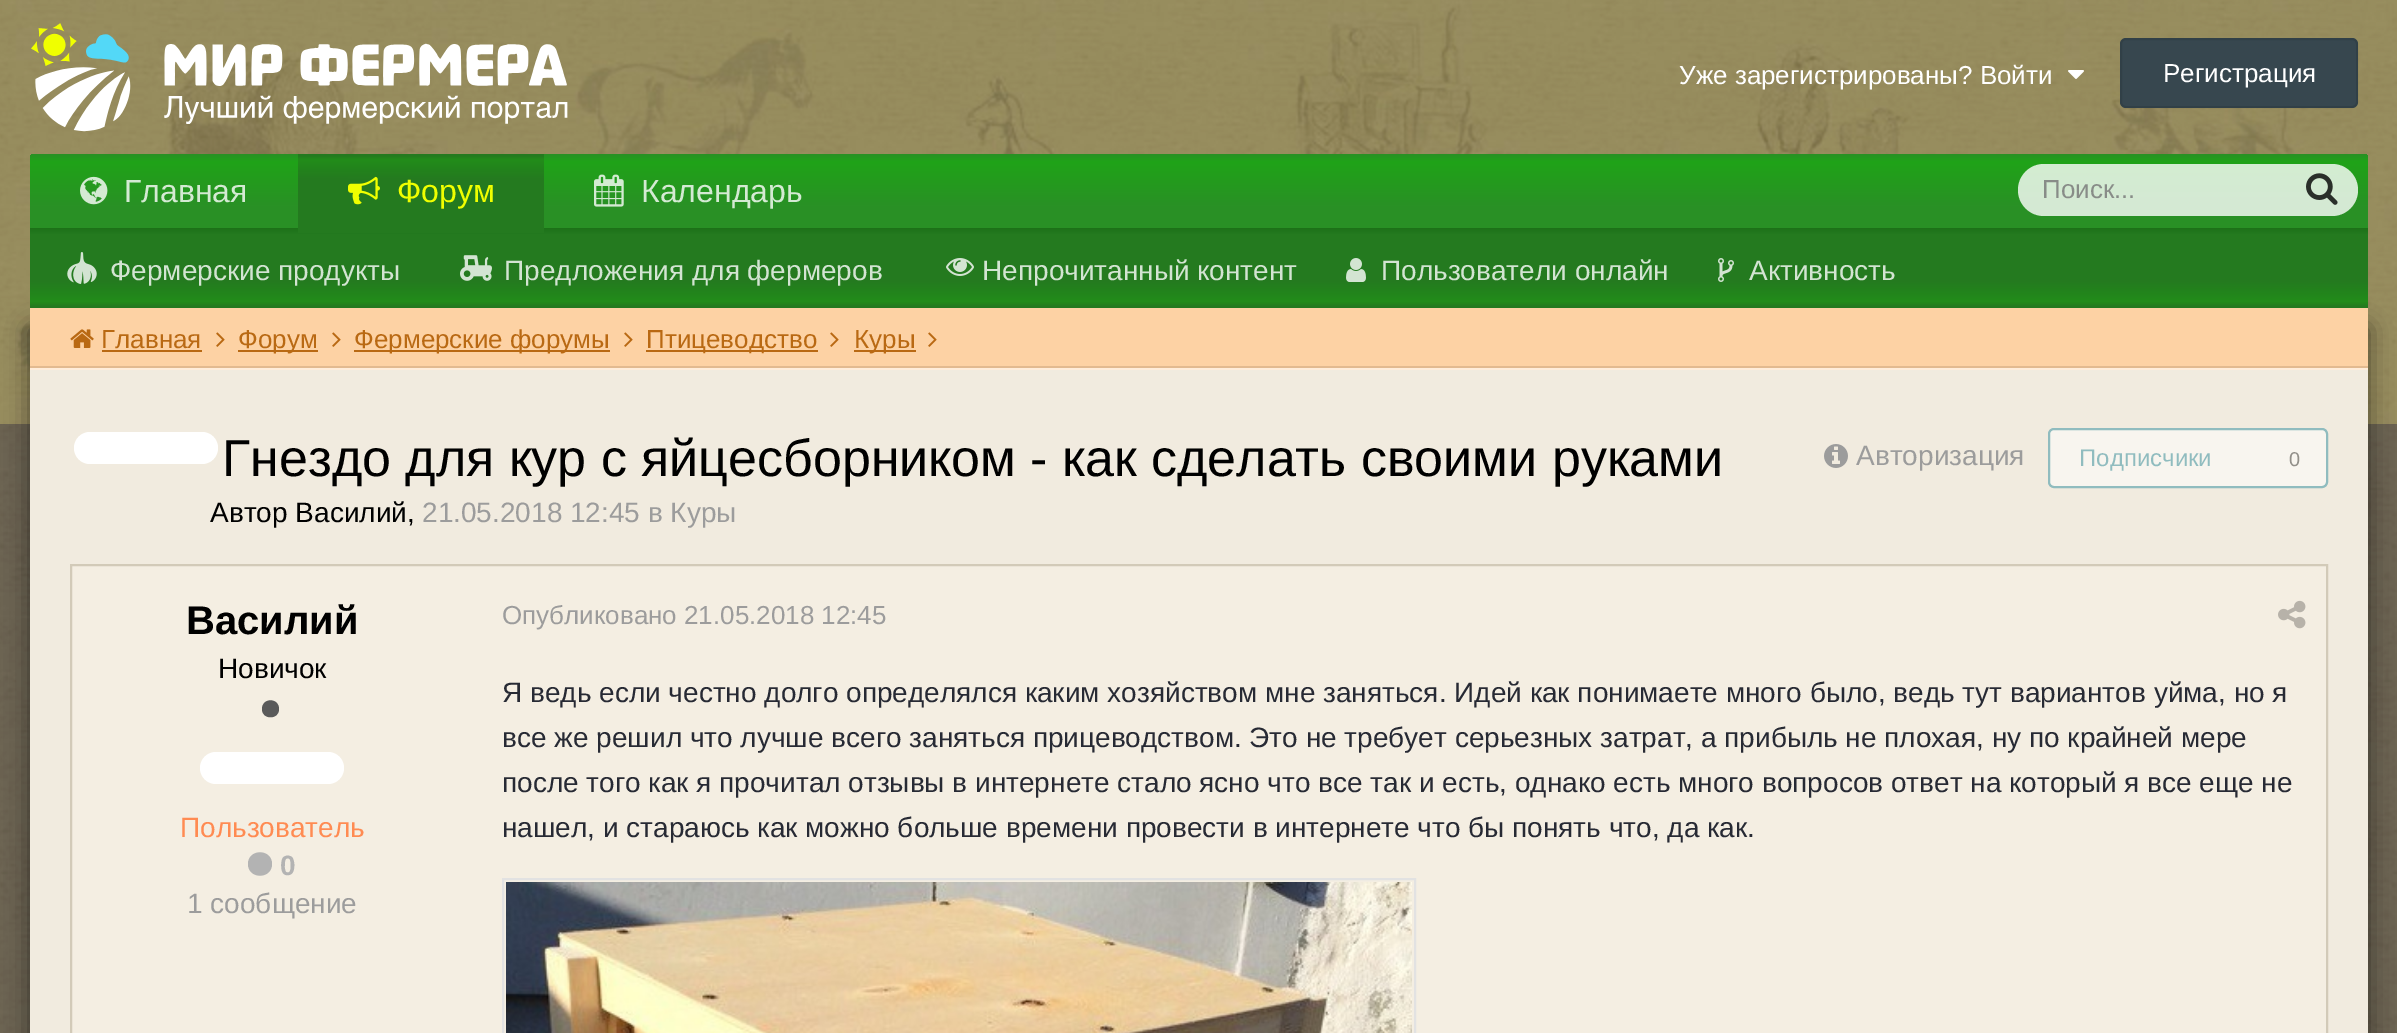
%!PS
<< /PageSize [2397 1033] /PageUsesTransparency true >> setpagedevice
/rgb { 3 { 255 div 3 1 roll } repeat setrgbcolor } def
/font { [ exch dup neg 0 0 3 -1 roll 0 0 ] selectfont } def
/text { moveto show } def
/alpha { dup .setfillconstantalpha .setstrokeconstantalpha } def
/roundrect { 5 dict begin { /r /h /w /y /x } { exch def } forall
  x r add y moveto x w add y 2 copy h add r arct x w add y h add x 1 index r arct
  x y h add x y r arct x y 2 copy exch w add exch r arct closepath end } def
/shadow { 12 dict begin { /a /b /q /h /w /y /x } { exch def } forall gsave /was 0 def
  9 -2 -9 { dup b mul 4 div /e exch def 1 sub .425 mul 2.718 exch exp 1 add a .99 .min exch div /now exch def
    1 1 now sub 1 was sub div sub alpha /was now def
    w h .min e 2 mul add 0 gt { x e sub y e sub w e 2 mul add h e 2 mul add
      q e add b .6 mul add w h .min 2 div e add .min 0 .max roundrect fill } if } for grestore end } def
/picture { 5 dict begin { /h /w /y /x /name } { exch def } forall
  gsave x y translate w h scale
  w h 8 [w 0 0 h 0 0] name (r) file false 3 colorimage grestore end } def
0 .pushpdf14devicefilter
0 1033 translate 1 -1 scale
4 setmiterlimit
255 255 255 rgb
0 0 2397 1033 rectfill
(img_01.rgb) 0 424 2397 609 picture
(img_02.rgb) 0 0 2397 424 picture
(img_03.rgb) 31 23 537 109 picture
(img_04.rgb) 2068 70 16 9 picture
55 71 79 rgb
2120 38 238 70 6 roundrect fill
0.1 alpha
0 0 0 rgb
2 setlinewidth
2121 39 236 68 5 roundrect stroke
1 alpha
30 328 2338 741 0 12 0.5 shadow
gsave 34 154 moveto 2330 0 rlineto 2 0 4 2 4 4 rcurveto 0 150 rlineto -2338 0 rlineto 0 -150 rlineto 0 -2 2 -4 4 -4 rcurveto closepath clip newpath
<< /ShadingType 2 /ColorSpace /DeviceRGB /Coords [1199 154 1199 308] /Extend [true true] /Function << /FunctionType 3 /Domain [0 1] /Functions [<< /FunctionType 2 /Domain [0 1] /C0 [0.161 0.565 0.145] /C1 [0.122 0.639 0.094] /N 1 >> << /FunctionType 2 /Domain [0 1] /C0 [0.122 0.639 0.094] /C1 [0.161 0.565 0.145] /N 1 >> << /FunctionType 2 /Domain [0 1] /C0 [0.161 0.565 0.145] /C1 [0.161 0.565 0.145] /N 1 >> << /FunctionType 2 /Domain [0 1] /C0 [0.161 0.565 0.145] /C1 [0.122 0.639 0.094] /N 1 >>] /Bounds [0.05 0.34 0.92] /Encode [0 1 0 1 0 1 0 1] >> >> shfill grestore
gsave 300 154 moveto 242 0 rlineto 1 0 2 1 2 2 rcurveto 0 72 rlineto -246 0 rlineto 0 -72 rlineto 0 -1 1 -2 2 -2 rcurveto closepath clip newpath
<< /ShadingType 2 /ColorSpace /DeviceRGB /Coords [421 154 421 228] /Extend [true true] /Function << /FunctionType 3 /Domain [0 1] /Functions [<< /FunctionType 2 /Domain [0 1] /C0 [0.141 0.478 0.122] /C1 [0.141 0.478 0.122] /N 1 >> << /FunctionType 2 /Domain [0 1] /C0 [0.141 0.478 0.122] /C1 [0.133 0.549 0.102] /N 1 >> << /FunctionType 2 /Domain [0 1] /C0 [0.133 0.549 0.102] /C1 [0.141 0.478 0.122] /N 1 >> << /FunctionType 2 /Domain [0 1] /C0 [0.141 0.478 0.122] /C1 [0.141 0.478 0.122] /N 1 >>] /Bounds [0.02 0.08 0.34] /Encode [0 1 0 1 0 1 0 1] >> >> shfill grestore
(img_05.rgb) 348 176 32 29 picture
gsave 30 228 moveto 2338 0 rlineto 0 80 rlineto -2338 0 rlineto closepath clip newpath
<< /ShadingType 2 /ColorSpace /DeviceRGB /Coords [1199 228 1199 308] /Extend [true true] /Function << /FunctionType 3 /Domain [0 1] /Functions [<< /FunctionType 2 /Domain [0 1] /C0 [0.114 0.443 0.094] /C1 [0.141 0.478 0.122] /N 1 >> << /FunctionType 2 /Domain [0 1] /C0 [0.141 0.478 0.122] /C1 [0.141 0.478 0.122] /N 1 >> << /FunctionType 2 /Domain [0 1] /C0 [0.141 0.478 0.122] /C1 [0.133 0.549 0.102] /N 1 >> << /FunctionType 2 /Domain [0 1] /C0 [0.133 0.549 0.102] /C1 [0.141 0.478 0.122] /N 1 >> << /FunctionType 2 /Domain [0 1] /C0 [0.141 0.478 0.122] /C1 [0.141 0.478 0.122] /N 1 >>] /Bounds [0.08 0.66 0.92 0.98] /Encode [0 1 0 1 0 1 0 1 0 1] >> >> shfill grestore
36 122 31 rgb
298 228 246 5 rectfill
(img_06.rgb) 67 252 30 32 picture
(img_07.rgb) 460 255 32 26 picture
(img_08.rgb) 946 258 28 18 picture
(img_09.rgb) 1346 258 20 24 picture
(img_10.rgb) 1718 258 16 24 picture
(img_11.rgb) 80 176 28 29 picture
(img_12.rgb) 594 174 30 33 picture
0.8 alpha
255 255 255 rgb
2018 164 340 52 26 roundrect fill
1 alpha
(img_13.rgb) 2306 173 32 32 picture
241 235 223 rgb
30 370 2338 663 rectfill
253 210 164 rgb
30 308 2338 58 rectfill
226 186 144 rgb
30 366 2338 2 rectfill
(img_14.rgb) 70 329 24 19 picture
185 105 19 rgb
102 350 100 2 rectfill
(img_15.rgb) 216 332 9 15 picture
238 350 80 2 rectfill
(img_15.rgb) 332 332 9 15 picture
354 350 256 2 rectfill
(img_15.rgb) 624 332 9 15 picture
646 350 172 2 rectfill
(img_15.rgb) 830 332 9 15 picture
854 350 62 2 rectfill
(img_15.rgb) 928 332 9 15 picture
255 237 218 rgb
30 368 2338 2 rectfill
255 255 255 rgb
74 432 144 32 16 roundrect fill
(img_16.rgb) 1824 444 24 24 picture
248 245 239 rgb
2049 429 278 58 5 roundrect gsave fill grestore
144 188 191 rgb
stroke
244 238 226 rgb
71 565 moveto 2256 0 rlineto 0 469 rlineto -2256 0 rlineto closepath gsave fill grestore
210 202 184 rgb
stroke
90 90 90 rgb
279 709 moveto 0 -11.5 -17 -11.5 -17 0 rcurveto 0 11 17 11 17 0 rcurveto closepath fill
255 255 255 rgb
200 752 144 32 16 roundrect fill
179 179 179 rgb
272 864 moveto 0 -15.5 -24 -15.5 -24 0 rcurveto 0 15.5 24 15.5 24 0 rcurveto closepath fill
(img_17.rgb) 2278 600 28 29 picture
226 226 226 rgb
503 879 912 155 rectstroke
(img_18.rgb) 506 882 906 151 picture
/LiberationSans-Regular 26 font
255 255 255 rgb
(Уже зарегистрированы? Войти) 1679 84 text
(Регистрация) 2163 82 text
/LiberationSans-Regular 32 font
240 255 0 rgb
(Форум) 397 202 text
/LiberationSans-Regular 28 font
211 228 210 rgb
(Фермерские продукты) 110 280 text
(Предложения для фермеров) 504 280 text
(Непрочитанный контент) 982 280 text
(Пользователи онлайн) 1381 280 text
(Активность) 1749 280 text
/LiberationSans-Regular 32 font
212 234 211 rgb
(Главная) 124 202 text
(Календарь) 641 202 text
/LiberationSans-Regular 26 font
136 140 136 rgb
(Поиск...) 2042 198 text
185 105 19 rgb
(Главная) 101 348 text
(Форум) 238 348 text
(Фермерские форумы) 354 348 text
(Птицеводство) 646 348 text
(Куры) 854 348 text
/LiberationSans-Regular 52 font
0 0 0 rgb
(Гнездо для кур с яйцесборником - как сделать своими руками) 222 476 text
/LiberationSans-Regular 28 font
(Автор Василий,) 210 522 text
156 156 156 rgb
(21.05.2018 12:45 в Куры) 422 522 text
(Авторизация) 1856 465 text
/LiberationSans-Regular 24 font
144 188 191 rgb
(Подписчики) 2079 466 text
/LiberationSans-Regular 20 font
146 143 137 rgb
(0) 2289 466 text
/LiberationSans-Bold 40 font
0 0 0 rgb
(Василий) 186 634 text
/LiberationSans-Regular 28 font
(Новичок) 218 678 text
255 139 82 rgb
(Пользователь) 180 837 text
/LiberationSans-Bold 28 font
179 179 179 rgb
(0) 280 875 text
/LiberationSans-Regular 28 font
156 156 156 rgb
(1 сообщение) 187 913 text
/LiberationSans-Regular 26 font
(Опубликовано 21.05.2018 12:45) 502 624 text
/LiberationSans-Regular 28 font
39 42 52 rgb
(Я ведь если честно долго определялся каким хозяйством мне заняться. Идей как понимаете много было, ведь тут вариантов уйма, но я) 502 702 text
(все же решил что лучше всего заняться прицеводством. Это не требует серьезных затрат, а прибыль не плохая, ну по крайней мере) 502 747 text
(после того как я прочитал отзывы в интернете стало ясно что все так и есть, однако есть много вопросов ответ на который я все еще не) 502 792 text
(нашел, и стараюсь как можно больше времени провести в интернете что бы понять что, да как.) 502 837 text
.poppdf14devicefilter showpage
